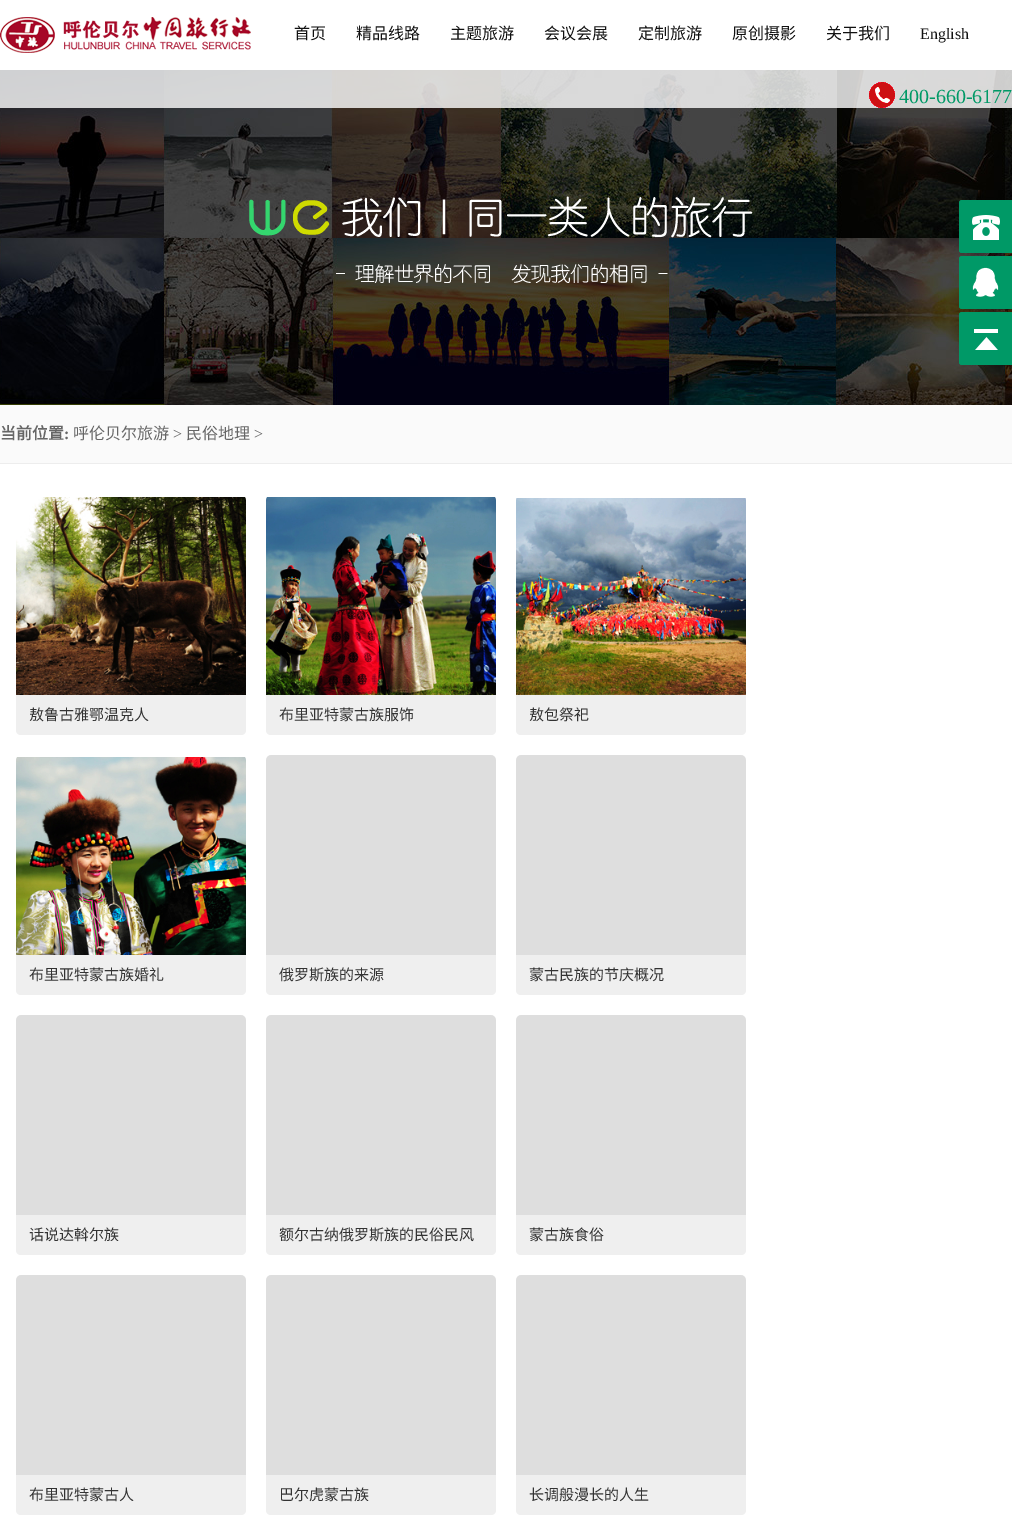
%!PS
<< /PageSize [1012 1538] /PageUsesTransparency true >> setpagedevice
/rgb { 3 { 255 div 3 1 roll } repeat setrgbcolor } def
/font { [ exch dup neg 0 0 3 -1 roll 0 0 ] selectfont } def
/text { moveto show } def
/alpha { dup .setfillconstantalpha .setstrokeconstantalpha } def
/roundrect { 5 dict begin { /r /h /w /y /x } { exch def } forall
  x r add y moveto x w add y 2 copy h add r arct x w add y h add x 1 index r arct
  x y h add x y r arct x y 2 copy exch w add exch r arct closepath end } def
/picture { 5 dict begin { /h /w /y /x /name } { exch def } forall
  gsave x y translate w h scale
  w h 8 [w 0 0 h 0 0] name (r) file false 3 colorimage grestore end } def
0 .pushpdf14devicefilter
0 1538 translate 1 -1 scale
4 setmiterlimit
255 255 255 rgb
0 0 1012 1538 rectfill
(img_03.rgb) 0 70 1012 335 picture
0.8 alpha
0 70 1012 38 rectfill
1 alpha
(img_01.rgb) 0 17 251 36 picture
(img_02.rgb) 869 82 26 26 picture
(img_04.rgb) 249 196 504 87 picture
0 153 102 rgb
959 200 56 53 3 roundrect fill
(img_05.rgb) 959 200 41 53 picture
959 256 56 53 3 roundrect fill
(img_06.rgb) 959 256 40 53 picture
959 312 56 53 3 roundrect fill
(img_07.rgb) 959 312 39 53 picture
250 250 250 rgb
0 405 1012 58 rectfill
237 237 237 rgb
0 463 1012 1 rectfill
(img_08.rgb) 16 497 230 198 picture
239 239 239 rgb
16 695 moveto 230 0 rlineto 0 35 rlineto 0 3 -2 5 -5 5 rcurveto -220 0 rlineto -3 0 -5 -2 -5 -5 rcurveto closepath fill
(img_09.rgb) 266 497 230 198 picture
266 695 moveto 230 0 rlineto 0 35 rlineto 0 3 -2 5 -5 5 rcurveto -220 0 rlineto -3 0 -5 -2 -5 -5 rcurveto closepath fill
(img_10.rgb) 516 498 230 197 picture
516 695 moveto 230 0 rlineto 0 35 rlineto 0 3 -2 5 -5 5 rcurveto -220 0 rlineto -3 0 -5 -2 -5 -5 rcurveto closepath fill
(img_11.rgb) 16 757 230 198 picture
16 955 moveto 230 0 rlineto 0 35 rlineto 0 3 -2 5 -5 5 rcurveto -220 0 rlineto -3 0 -5 -2 -5 -5 rcurveto closepath fill
(img_12.rgb) 266 755 230 200 picture
266 955 moveto 230 0 rlineto 0 35 rlineto 0 3 -2 5 -5 5 rcurveto -220 0 rlineto -3 0 -5 -2 -5 -5 rcurveto closepath fill
(img_12.rgb) 516 755 230 200 picture
516 955 moveto 230 0 rlineto 0 35 rlineto 0 3 -2 5 -5 5 rcurveto -220 0 rlineto -3 0 -5 -2 -5 -5 rcurveto closepath fill
(img_13.rgb) 16 1015 230 200 picture
16 1215 moveto 230 0 rlineto 0 35 rlineto 0 3 -2 5 -5 5 rcurveto -220 0 rlineto -3 0 -5 -2 -5 -5 rcurveto closepath fill
(img_13.rgb) 266 1015 230 200 picture
266 1215 moveto 230 0 rlineto 0 35 rlineto 0 3 -2 5 -5 5 rcurveto -220 0 rlineto -3 0 -5 -2 -5 -5 rcurveto closepath fill
(img_13.rgb) 516 1015 230 200 picture
516 1215 moveto 230 0 rlineto 0 35 rlineto 0 3 -2 5 -5 5 rcurveto -220 0 rlineto -3 0 -5 -2 -5 -5 rcurveto closepath fill
(img_12.rgb) 16 1275 230 200 picture
16 1475 moveto 230 0 rlineto 0 35 rlineto 0 3 -2 5 -5 5 rcurveto -220 0 rlineto -3 0 -5 -2 -5 -5 rcurveto closepath fill
(img_12.rgb) 266 1275 230 200 picture
266 1475 moveto 230 0 rlineto 0 35 rlineto 0 3 -2 5 -5 5 rcurveto -220 0 rlineto -3 0 -5 -2 -5 -5 rcurveto closepath fill
(img_12.rgb) 516 1275 230 200 picture
516 1475 moveto 230 0 rlineto 0 35 rlineto 0 3 -2 5 -5 5 rcurveto -220 0 rlineto -3 0 -5 -2 -5 -5 rcurveto closepath fill
/NotoSansCJKSC-Regular 16 font
17 17 17 rgb
(首页) 294 39 text
(精品线路) 356 39 text
(主题旅游) 450 39 text
(会议会展) 544 39 text
(定制旅游) 638 39 text
(原创摄影) 732 39 text
(关于我们) 826 39 text
/LiberationSerif-Regular 16 font
(English) 920 39 text
/LiberationSerif-Regular 20 font
0 153 102 rgb
(400-660-6177) 899 103 text
/NotoSansCJKSC-Bold 16 font
102 102 102 rgb
(当前位置) 0 439 text
/LiberationSerif-Bold 16 font
(:) 64 439 text
/NotoSansCJKSC-Regular 16 font
(呼伦贝尔旅游) 73 439 text
/LiberationSerif-Regular 16 font
(>) 173 439 text
/NotoSansCJKSC-Regular 16 font
(民俗地理) 186 439 text
/LiberationSerif-Regular 16 font
(>) 254 439 text
/NotoSansCJKSC-Regular 15 font
51 51 51 rgb
(敖鲁古雅鄂温克人) 29 720 text
(布里亚特蒙古族服饰) 279 720 text
(敖包祭祀) 529 720 text
(布里亚特蒙古族婚礼) 29 980 text
(俄罗斯族的来源) 279 980 text
(蒙古民族的节庆概况) 529 980 text
(话说达斡尔族) 29 1240 text
(额尔古纳俄罗斯族的民俗民风) 279 1240 text
(蒙古族食俗) 529 1240 text
(布里亚特蒙古人) 29 1500 text
(巴尔虎蒙古族) 279 1500 text
(长调般漫长的人生) 529 1500 text
.poppdf14devicefilter showpage
